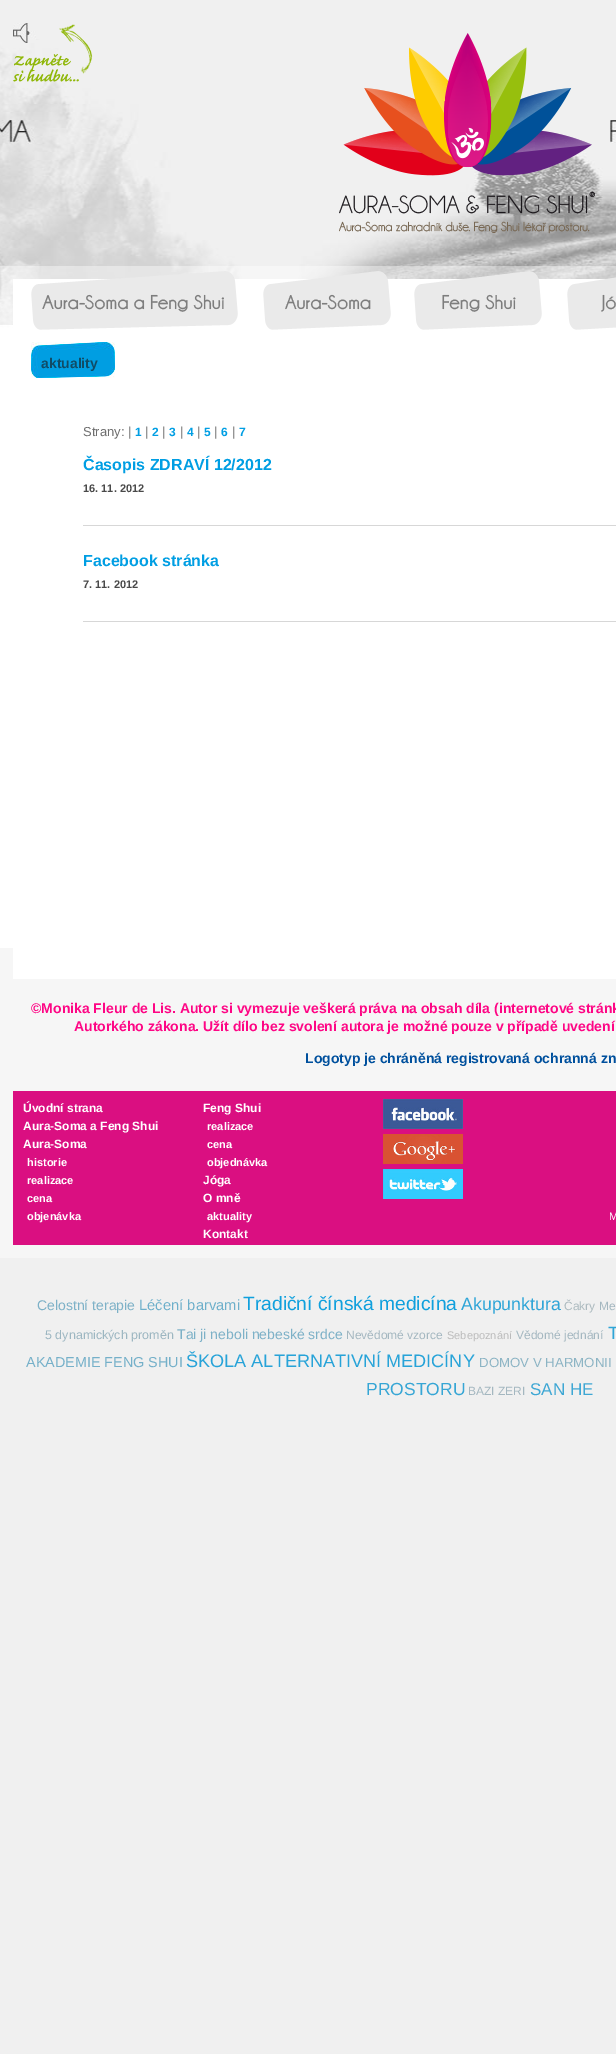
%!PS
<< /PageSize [616 2054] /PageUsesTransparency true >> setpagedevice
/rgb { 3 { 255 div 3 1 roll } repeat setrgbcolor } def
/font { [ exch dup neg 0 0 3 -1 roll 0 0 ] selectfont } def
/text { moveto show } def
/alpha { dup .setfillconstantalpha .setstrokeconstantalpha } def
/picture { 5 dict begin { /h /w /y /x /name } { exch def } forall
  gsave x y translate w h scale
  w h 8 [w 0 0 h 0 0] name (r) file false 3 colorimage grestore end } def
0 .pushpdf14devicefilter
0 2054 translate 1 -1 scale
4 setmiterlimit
240 240 240 rgb
0 0 616 2054 rectfill
(img_01.rgb) 0 39 616 909 picture
(img_03.rgb) 13 24 80 58 picture
(img_02.rgb) 13 23 23 20 picture
(img_04.rgb) 339 33 256 201 picture
0.4 alpha
255 255 255 rgb
0 266 616 992 rectfill
1 alpha
13 279 603 700 rectfill
(img_05.rgb) 31 271 207 59 picture
(img_06.rgb) 263 271 128 59 picture
(img_07.rgb) 414 271 128 59 picture
(img_08.rgb) 567 277 49 53 picture
(img_09.rgb) 31 342 84 36 picture
215 215 215 rgb
83 525 533 1 rectfill
83 621 533 1 rectfill
218 15 129 rgb
13 1091 603 154 rectfill
(img_10.rgb) 383 1099 80 30 picture
(img_11.rgb) 383 1134 80 30 picture
(img_12.rgb) 383 1169 80 30 picture
/LiberationSans-Bold 14 font
16 76 102 rgb
(aktuality) 41 368 text
/LiberationSans-Regular 13 font
110 110 110 rgb
(Strany: |) 83 436 text
/LiberationSans-Bold 12 font
0 158 227 rgb
(1) 135 436 text
/LiberationSans-Regular 13 font
110 110 110 rgb
(|) 145 436 text
/LiberationSans-Bold 12 font
0 158 227 rgb
(2) 152 436 text
/LiberationSans-Regular 13 font
110 110 110 rgb
(|) 162 436 text
/LiberationSans-Bold 12 font
0 158 227 rgb
(3) 169 436 text
/LiberationSans-Regular 13 font
110 110 110 rgb
(|) 180 436 text
/LiberationSans-Bold 12 font
0 158 227 rgb
(4) 187 436 text
/LiberationSans-Regular 13 font
110 110 110 rgb
(|) 197 436 text
/LiberationSans-Bold 12 font
0 158 227 rgb
(5) 204 436 text
/LiberationSans-Regular 13 font
110 110 110 rgb
(|) 214 436 text
/LiberationSans-Bold 12 font
0 158 227 rgb
(6) 221 436 text
/LiberationSans-Regular 13 font
110 110 110 rgb
(|) 232 436 text
/LiberationSans-Bold 12 font
0 158 227 rgb
(7) 239 436 text
/LiberationSans-Bold 16 font
(Časopis ZDRAVÍ 12/2012) 83 470 text
/LiberationSans-Bold 11 font
73 73 73 rgb
(16. 11. 2012) 83 492 text
/LiberationSans-Bold 16 font
0 158 227 rgb
(Facebook stránka) 83 566 text
/LiberationSans-Bold 11 font
73 73 73 rgb
(7. 11. 2012) 83 588 text
/LiberationSans-Bold 14 font
254 6 133 rgb
(©Monika Fleur de Lis. Autor si vymezuje veškerá práva na obsah díla \(internetové stránk) 31 1013 text
(Autorkého zákona. Užít dílo bez svolení autora je možné pouze v případě uvedení) 74 1031 text
0 80 157 rgb
(Logotyp je chráněná registrovaná ochranná zn) 305 1063 text
/LiberationSans-Bold 12 font
255 255 255 rgb
(Úvodní strana) 23 1112 text
(Aura-Soma a Feng Shui) 23 1130 text
(Aura-Soma) 23 1148 text
/LiberationSans-Bold 11 font
(historie) 27 1166 text
(realizace) 27 1184 text
(cena) 27 1202 text
(objenávka) 27 1220 text
/LiberationSans-Bold 12 font
(Feng Shui) 203 1112 text
/LiberationSans-Bold 11 font
(realizace) 207 1130 text
(cena) 207 1148 text
(objednávka) 207 1166 text
/LiberationSans-Bold 12 font
(Jóga) 203 1184 text
(O mně) 203 1202 text
/LiberationSans-Bold 11 font
(aktuality) 207 1220 text
/LiberationSans-Bold 12 font
(Kontakt) 203 1238 text
/LiberationSans-Regular 11 font
(M) 609 1220 text
/LiberationSans-Regular 14 font
125 177 199 rgb
(Celostní terapie) 37 1310 text
/LiberationSans-Regular 14.75 font
109 175 202 rgb
(Léčení barvami) 139 1310 text
/LiberationSans-Regular 19.25 font
16 160 221 rgb
(Tradiční čínská medicína) 243 1310 text
/LiberationSans-Regular 17.75 font
47 165 215 rgb
(Akupunktura) 461 1310 text
/LiberationSans-Regular 12 font
171 185 190 rgb
(Čakry) 564 1310 text
164 183 192 rgb
(Me) 599 1310 text
/LiberationSans-Regular 12.5 font
156 182 193 rgb
(5 dynamických proměn) 45 1339 text
/LiberationSans-Regular 14 font
125 177 199 rgb
(Tai ji neboli nebeské srdce) 177 1339 text
/LiberationSans-Regular 12 font
164 183 192 rgb
(Nevědomé vzorce) 346 1339 text
/LiberationSans-Regular 11 font
187 187 187 rgb
(Sebepoznání) 447 1339 text
/LiberationSans-Regular 12 font
164 183 192 rgb
(Vědomé jednání) 516 1339 text
/LiberationSans-Regular 17.75 font
47 165 215 rgb
(T) 608 1339 text
/LiberationSans-Regular 14.4 font
117 176 201 rgb
(AKADEMIE FENG SHUI) 26 1367 text
/LiberationSans-Regular 18.1 font
39 163 216 rgb
(ŠKOLA ALTERNATIVNÍ MEDICÍNY) 186 1367 text
/LiberationSans-Regular 13.25 font
140 180 196 rgb
(DOMOV V HARMONII) 479 1367 text
/LiberationSans-Regular 17.5 font
55 166 213 rgb
(PROSTORU) 366 1395 text
/LiberationSans-Regular 12 font
164 183 192 rgb
(BAZI ZERI) 468 1395 text
/LiberationSans-Regular 17 font
62 167 212 rgb
(SAN HE) 530 1395 text
.poppdf14devicefilter showpage
